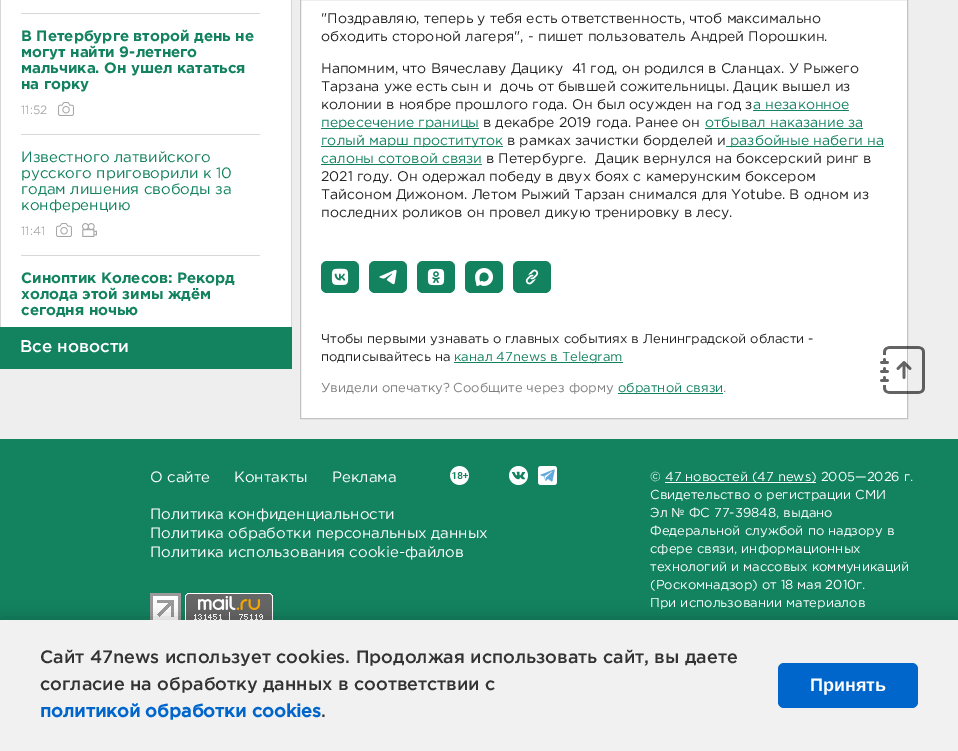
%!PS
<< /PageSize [958 751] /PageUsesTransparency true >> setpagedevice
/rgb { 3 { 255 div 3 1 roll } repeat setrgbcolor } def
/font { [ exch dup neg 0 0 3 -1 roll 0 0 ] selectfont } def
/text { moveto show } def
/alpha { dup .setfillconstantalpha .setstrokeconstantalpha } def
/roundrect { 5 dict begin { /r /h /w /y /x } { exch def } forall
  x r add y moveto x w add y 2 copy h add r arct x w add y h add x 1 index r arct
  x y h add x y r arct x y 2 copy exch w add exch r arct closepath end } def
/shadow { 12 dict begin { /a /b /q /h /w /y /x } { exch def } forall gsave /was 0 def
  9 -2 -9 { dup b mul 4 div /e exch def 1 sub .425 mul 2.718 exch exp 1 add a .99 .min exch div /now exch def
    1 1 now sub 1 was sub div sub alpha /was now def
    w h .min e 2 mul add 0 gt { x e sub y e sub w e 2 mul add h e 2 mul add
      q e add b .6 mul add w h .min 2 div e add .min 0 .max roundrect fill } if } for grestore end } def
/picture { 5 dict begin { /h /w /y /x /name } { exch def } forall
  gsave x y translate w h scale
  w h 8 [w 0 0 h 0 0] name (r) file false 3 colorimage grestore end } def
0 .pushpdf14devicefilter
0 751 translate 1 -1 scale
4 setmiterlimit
238 238 238 rgb
0 0 958 751 rectfill
255 255 255 rgb
1 0 290 327 rectfill
214 214 214 rgb
291 0 1 327 rectfill
0 0 1 327 rectfill
216 216 216 rgb
21 13 239 1 rectfill
21 134 239 1 rectfill
(img_01.rgb) 58 102 16 14 picture
21 255 239 1 rectfill
(img_01.rgb) 56 223 16 14 picture
(img_02.rgb) 82 223 15 14 picture
19 130 95 rgb
0 327 292 42 rectfill
255 255 255 rgb
300.5 -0.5 moveto 607 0 rlineto 0 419 rlineto -607 0 rlineto closepath gsave fill grestore
194 194 194 rgb
stroke
19 130 95 rgb
753 110 96 1 rectfill
321 128 158 1 rectfill
705 128 158 1 rectfill
321 146 182 1 rectfill
726 146 158 1 rectfill
321 164 161 1 rectfill
321 261 38 32 6 roundrect fill
(img_03.rgb) 331 268 18 17 picture
369 261 38 32 6 roundrect fill
(img_04.rgb) 379 269 18 16 picture
417 261 38 32 6 roundrect fill
(img_05.rgb) 427 268 18 18 picture
465 261 38 32 6 roundrect fill
(img_06.rgb) 475 268 18 18 picture
513 261 38 32 6 roundrect fill
(img_07.rgb) 525 269 14 16 picture
454 362 169 1 rectfill
618 393 105 1 rectfill
0 439 958 181 rectfill
(img_08.rgb) 450 466 19 19 picture
(img_09.rgb) 509 466 19 19 picture
(img_10.rgb) 538 466 19 19 picture
(img_11.rgb) 150 593 31 27 picture
(img_12.rgb) 185 593 88 27 picture
255 255 255 rgb
665 482 151 1 rectfill
(img_13.rgb) 880 346 45 48 picture
0 0 0 rgb
0 618 958 131 0 7.5 0.2 shadow
241 241 241 rgb
0 620 958 131 rectfill
0 102 204 rgb
778 663 140 45 6 roundrect fill
/Gotham-Bold 15 font
19 130 95 rgb
(В Петербурге второй день не) 21 41 text
(могут найти 9-летнего) 21 57 text
(мальчика. Он ушел кататься) 21 73 text
(на горку) 21 89 text
/Gotham-Regular 12 font
167 167 167 rgb
(11:52) 21 114 text
/Gotham-Regular 15 font
19 130 95 rgb
(Известного латвийского) 21 162 text
(русского приговорили к 10) 21 178 text
(годам лишения свободы за) 21 194 text
(конференцию) 21 210 text
/Gotham-Regular 12 font
167 167 167 rgb
(11:41) 21 235 text
/Gotham-Bold 15 font
19 130 95 rgb
(Синоптик Колесов: Рекорд) 21 283 text
(холода этой зимы ждём) 21 299 text
(сегодня ночью) 21 315 text
/Gotham-Medium 17 font
255 255 255 rgb
(Все новости) 20 352 text
/Gotham-Regular 14 font
34 34 34 rgb
("Поздравляю, теперь у тебя есть ответственность, чтоб максимально) 321 23 text
(обходить стороной лагеря", - пишет пользователь Андрей Порошкин.) 321 41 text
(Напомним, что Вячеславу Дацику  41 год, он родился в Сланцах. У Рыжего) 321 73 text
(Тарзана уже есть сын и  дочь от бывшей сожительницы. Дацик вышел из) 321 91 text
(колонии в ноябре прошлого года. Он был осужден на год з) 321 109 text
19 130 95 rgb
(а незаконное) 753 109 text
(пересечение границы) 321 127 text
34 34 34 rgb
(в декабре 2019 года. Ранее он) 483 127 text
19 130 95 rgb
(отбывал наказание за) 705 127 text
(голый марш проституток) 321 145 text
34 34 34 rgb
(в рамках зачистки борделей и) 507 145 text
19 130 95 rgb
(разбойные набеги на) 730 145 text
(салоны сотовой связи) 321 163 text
34 34 34 rgb
(в Петербурге.  Дацик вернулся на боксерский ринг в) 486 163 text
(2021 году. Он одержал победу в двух боях с камерунским боксером) 321 181 text
(Тайсоном Дижоном. Летом Рыжий Тарзан снимался для Yotube. В одном из) 321 199 text
(последних роликов он провел дикую тренировку в лесу.) 321 217 text
/Gotham-Regular 13 font
(Чтобы первыми узнавать о главных событиях в Ленинградской области -) 321 343 text
(подписывайтесь на) 321 361 text
19 130 95 rgb
(канал 47news в Telegram) 454 361 text
128 128 128 rgb
(Увидели опечатку? Сообщите через форму) 321 392 text
19 130 95 rgb
(обратной связи) 618 392 text
128 128 128 rgb
(.) 723 392 text
/Gotham-Regular 15 font
255 255 255 rgb
(О сайте) 150 482 text
(Контакты) 234 482 text
(Реклама) 332 482 text
(Политика конфиденциальности) 150 519 text
(Политика обработки персональных данных) 150 538 text
(Политика использования cookie-файлов) 150 557 text
/Gotham-Regular 13 font
(©) 650 481 text
(47 новостей \(47 news\) 2005—2026 г.) 665 481 text
(Свидетельство о регистрации СМИ) 650 499 text
(Эл № ФС 77-39848, выдано) 650 517 text
(Федеральной службой по надзору в) 650 535 text
(сфере связи, информационных) 650 553 text
(технологий и массовых коммуникаций) 650 571 text
(\(Роскомнадзор\) от 18 мая 2010г.) 650 589 text
(При использовании материалов) 650 607 text
/Gotham-Medium 18 font
51 51 51 rgb
(Сайт 47news использует cookies. Продолжая использовать сайт, вы даете) 40 663 text
(согласие на обработку данных в соответствии с) 40 690 text
/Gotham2-Bold 18 font
0 102 204 rgb
(политикой обработки cookies) 40 717 text
/Gotham-Medium 18 font
51 51 51 rgb
(.) 321 717 text
/LiberationSans-Bold 18 font
255 255 255 rgb
(Принять) 810 691 text
.poppdf14devicefilter showpage
